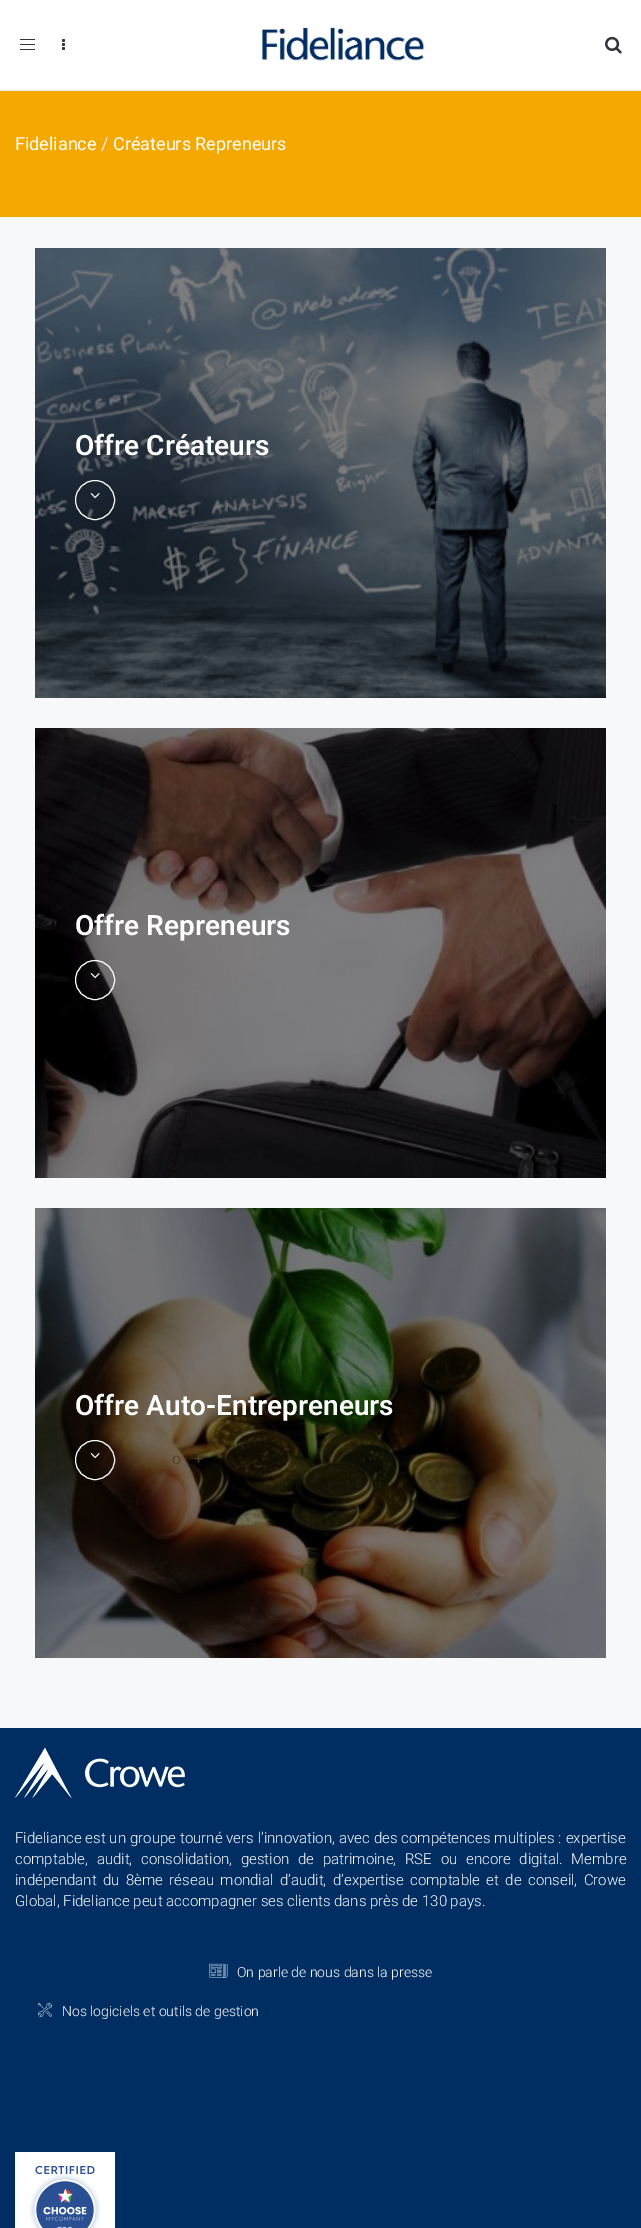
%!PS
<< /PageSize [641 2228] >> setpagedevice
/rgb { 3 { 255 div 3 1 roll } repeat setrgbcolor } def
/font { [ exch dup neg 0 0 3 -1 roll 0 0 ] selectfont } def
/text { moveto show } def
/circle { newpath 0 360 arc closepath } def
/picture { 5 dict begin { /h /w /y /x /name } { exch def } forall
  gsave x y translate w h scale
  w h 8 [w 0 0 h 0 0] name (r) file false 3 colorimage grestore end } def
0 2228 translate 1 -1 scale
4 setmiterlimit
255 255 255 rgb
0 0 641 2228 rectfill
239 239 239 rgb
0 90 641 1 rectfill
52 52 60 rgb
20 49 15 1 rectfill
20 39 15 1 rectfill
20 44 15 1 rectfill
(img_01.rgb) 62 39 3 11 picture
(img_02.rgb) 261 26 164 35 picture
(img_03.rgb) 605 36 17 18 picture
245 168 0 rgb
0 91 641 126 rectfill
247 248 250 rgb
0 217 641 1511 rectfill
(img_04.rgb) 35 248 571 450 picture
255 255 255 rgb
95 500 19.5 circle stroke
(img_05.rgb) 90 493 10 6 picture
(img_06.rgb) 35 728 571 450 picture
95 980 19.5 circle stroke
(img_07.rgb) 90 973 10 6 picture
(img_08.rgb) 35 1208 571 450 picture
95 1460 19.5 circle stroke
(img_09.rgb) 90 1453 10 6 picture
0 46 98 rgb
0 1728 641 500 rectfill
(img_10.rgb) 15 1748 170 50 picture
(img_11.rgb) 209 1963 19 15 picture
(img_12.rgb) 38 2002 14 15 picture
(img_13.rgb) 15 2152 100 76 picture
/Roboto-Regular 18 font
255 255 255 rgb
(Fideliance) 15 150 text
239 239 239 rgb
(/) 101 150 text
255 255 255 rgb
(Créateurs Repreneurs) 113 150 text
/Roboto-SemiBold 28 font
(Offre Créateurs) 75 455 text
(Offre Repreneurs) 75 935 text
(Offre Auto-Entrepreneurs) 75 1415 text
/Roboto-Regular 16 font
85 64 41 rgb
(o) 172 1464 text
(+) 194 1464 text
/Roboto-Light 15 font
255 255 255 rgb
15 1843 moveto 0.25 0 32 (Fideliance est un groupe tourné vers l’innovation, avec des compétences multiples : expertise) widthshow
15 1864 moveto 5 0 32 (comptable, audit, consolidation, gestion de patrimoine, RSE ou encore digital. Membre) widthshow
15 1885 moveto 2.75 0 32 (indépendant du 8ème réseau mondial d’audit, d’expertise comptable et de conseil, Crowe) widthshow
(Global, Fideliance peut accompagner ses clients dans près de 130 pays.) 15 1906 text
/Roboto-Light 14 font
(On parle de nous dans la presse) 237 1977 text
(Nos logiciels et outils de gestion) 62 2016 text
showpage
